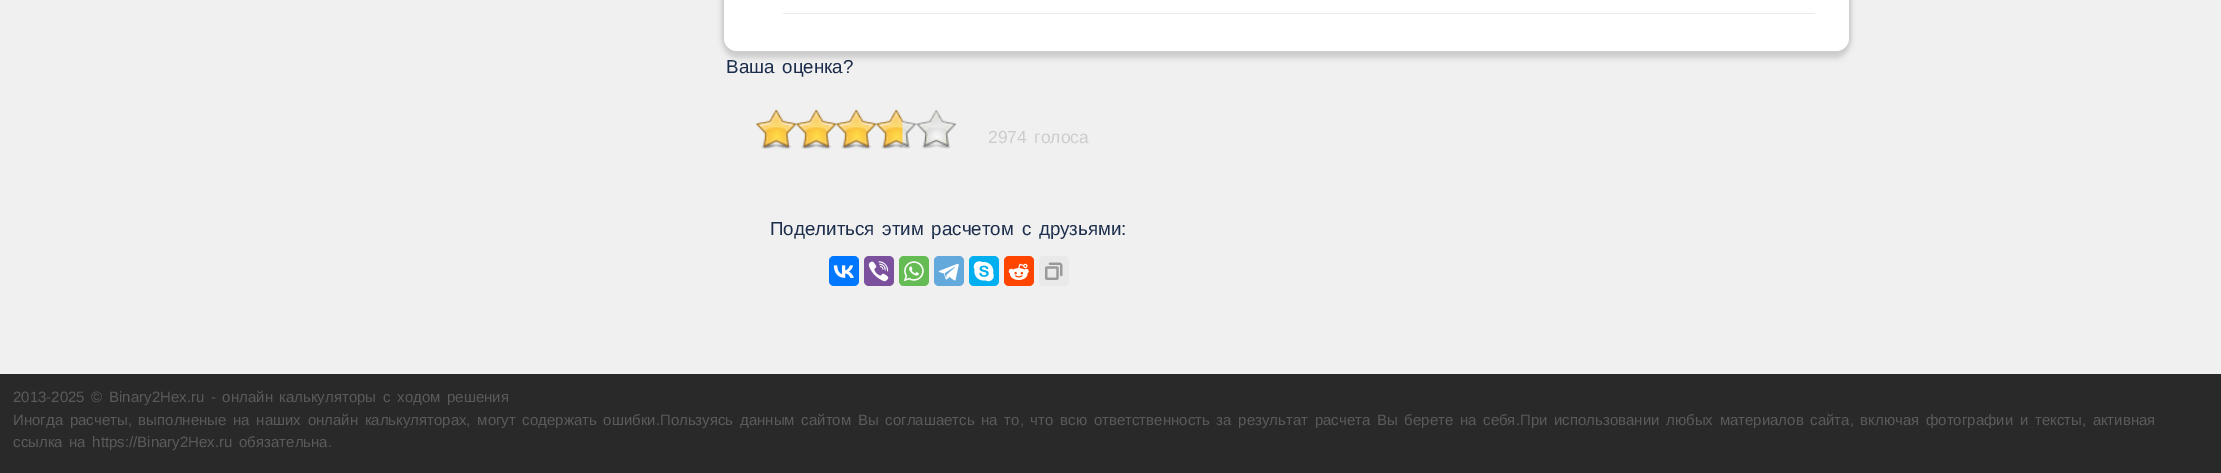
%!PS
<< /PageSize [2221 473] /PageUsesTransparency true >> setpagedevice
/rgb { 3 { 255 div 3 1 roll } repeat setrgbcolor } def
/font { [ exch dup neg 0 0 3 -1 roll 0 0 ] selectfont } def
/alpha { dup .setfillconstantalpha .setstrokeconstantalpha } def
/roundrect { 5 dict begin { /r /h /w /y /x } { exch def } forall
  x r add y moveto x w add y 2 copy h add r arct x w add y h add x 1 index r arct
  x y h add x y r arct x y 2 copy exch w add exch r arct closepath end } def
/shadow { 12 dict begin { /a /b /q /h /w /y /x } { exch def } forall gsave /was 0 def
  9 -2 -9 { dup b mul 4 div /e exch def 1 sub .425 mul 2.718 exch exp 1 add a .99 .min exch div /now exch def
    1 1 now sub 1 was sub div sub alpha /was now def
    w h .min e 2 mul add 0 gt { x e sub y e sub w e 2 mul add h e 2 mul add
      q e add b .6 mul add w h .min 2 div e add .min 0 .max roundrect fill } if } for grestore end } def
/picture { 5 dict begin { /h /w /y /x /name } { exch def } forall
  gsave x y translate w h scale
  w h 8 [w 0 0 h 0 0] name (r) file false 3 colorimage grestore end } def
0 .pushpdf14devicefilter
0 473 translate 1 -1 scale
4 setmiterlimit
240 240 240 rgb
0 0 2221 473 rectfill
165 165 165 rgb
724 -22 1125 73 13 3 1 shadow
204 204 204 rgb
724 -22 1125 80 13 3 1 shadow
255 255 255 rgb
724 -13 1125 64 13 roundrect fill
234 234 234 rgb
783 13 1032 1 rectfill
(img_01.rgb) 756 109 201 40 picture
(img_02.rgb) 756 109 147 40 picture
0 119 255 rgb
829 256 30 30 5 roundrect fill
(img_03.rgb) 833 265 21 13 picture
123 81 157 rgb
864 256 30 30 5 roundrect fill
(img_04.rgb) 868 261 21 21 picture
101 188 84 rgb
899 256 30 30 5 roundrect fill
(img_05.rgb) 903 261 21 21 picture
100 169 220 rgb
934 256 30 30 5 roundrect fill
(img_06.rgb) 938 263 21 18 picture
0 175 240 rgb
969 256 30 30 5 roundrect fill
(img_07.rgb) 973 261 21 21 picture
255 69 0 rgb
1004 256 30 30 5 roundrect fill
(img_08.rgb) 1008 263 21 17 picture
233 233 233 rgb
1039 256 30 30 5 roundrect fill
(img_09.rgb) 1045 262 18 18 picture
41 41 41 rgb
0 374 2221 99 rectfill
/LiberationSans-Regular 18.75 font
29 46 76 rgb
726 73 moveto 2.5 0 32 (Ваша оценка?) widthshow
/LiberationSans-Regular 17.5 font
204 204 204 rgb
988 143 moveto 2.5 0 32 (2974 голоса) widthshow
/LiberationSans-Regular 18.75 font
29 46 76 rgb
770 235 moveto 2.5 0 32 (Поделиться этим расчетом с друзьями:) widthshow
/LiberationSans-Regular 15 font
90 90 90 rgb
13 402 moveto 2.5 0 32 (2013-2025 © Binary2Hex.ru - онлайн калькуляторы с ходом решения) widthshow
13 425 moveto 2.5 0 32 (Иногда расчеты, выполненые на наших онлайн калькуляторах, могут содержать ошибки.Пользуясь данным сайтом Вы соглашаетсь на то, что всю ответственность за результат расчета Вы берете на себя.При использовании любых материалов сайта, включая фотографии и тексты, активная) widthshow
13 447 moveto 2.5 0 32 (ссылка на https://Binary2Hex.ru обязательна.) widthshow
.poppdf14devicefilter showpage
